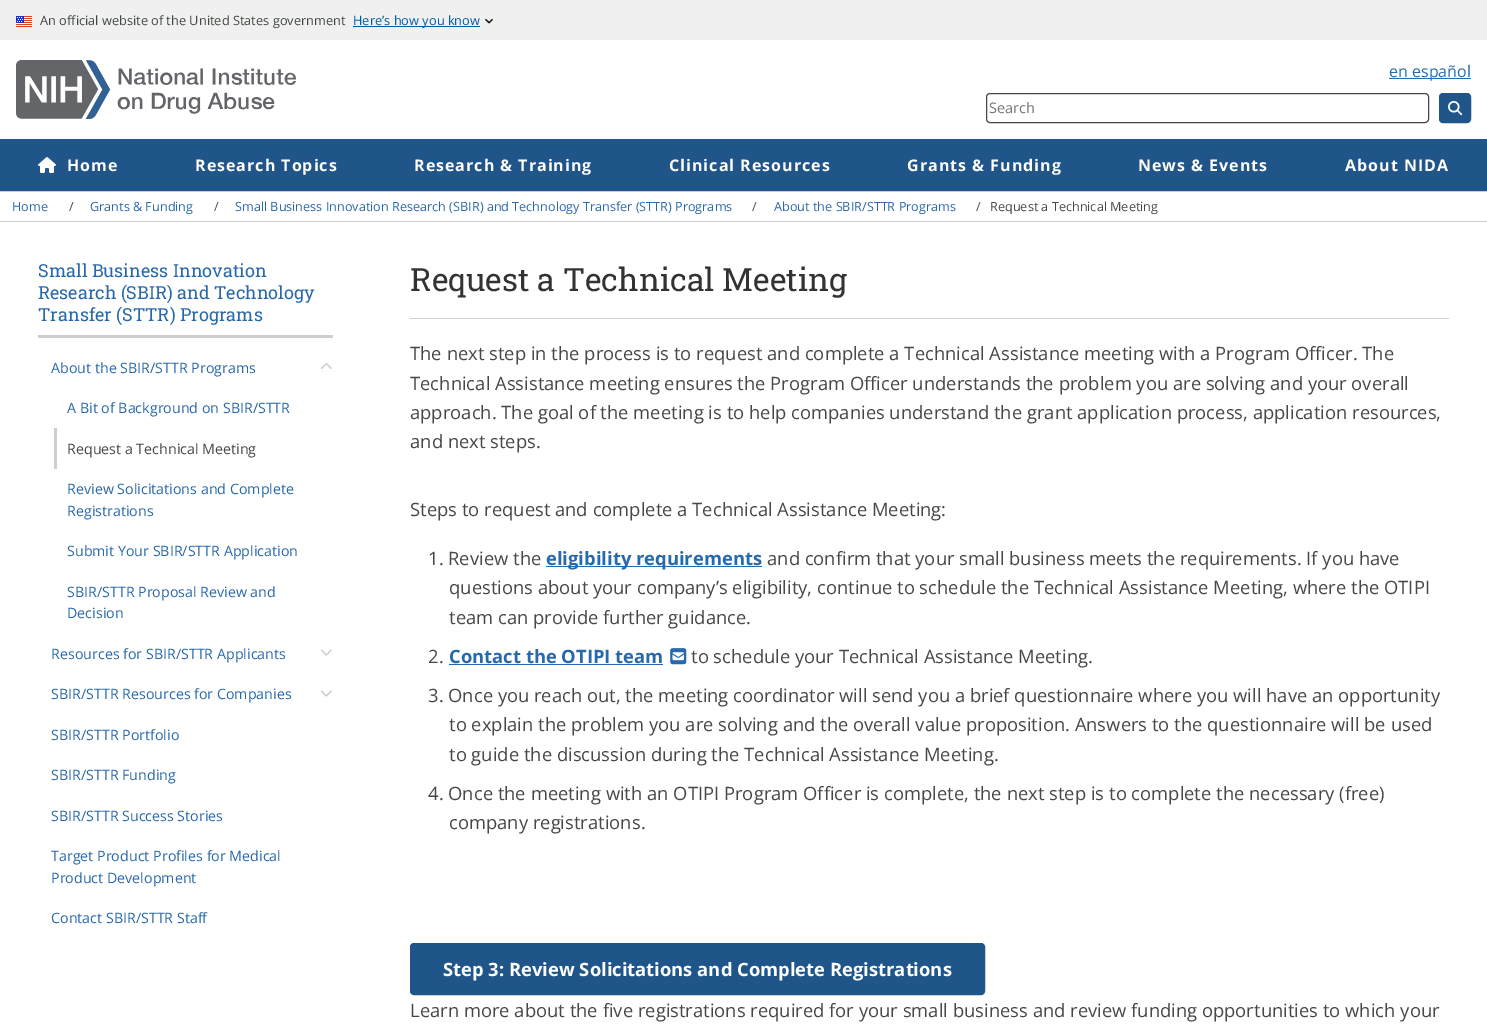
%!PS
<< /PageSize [1487 1034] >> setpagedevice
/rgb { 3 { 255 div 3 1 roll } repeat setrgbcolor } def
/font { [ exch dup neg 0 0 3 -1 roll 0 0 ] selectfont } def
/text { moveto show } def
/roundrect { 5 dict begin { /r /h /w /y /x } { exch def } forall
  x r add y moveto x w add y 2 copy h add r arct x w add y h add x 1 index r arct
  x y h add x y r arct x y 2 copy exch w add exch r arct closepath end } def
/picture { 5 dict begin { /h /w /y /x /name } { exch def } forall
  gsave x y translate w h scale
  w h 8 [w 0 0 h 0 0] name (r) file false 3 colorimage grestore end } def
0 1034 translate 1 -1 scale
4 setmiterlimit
255 255 255 rgb
0 0 1487 1034 rectfill
240 240 240 rgb
0 0 1487 40 rectfill
(img_01.rgb) 16 16 16 11 picture
0 94 162 rgb
353 26 127 1 rectfill
(img_02.rgb) 485 18 8 6 picture
(img_03.rgb) 16 60 280 59 picture
40 105 171 rgb
1389 78 82 1 rectfill
71 71 71 rgb
986.5 93.5 442 29 3.5 roundrect stroke
32 85 138 rgb
1439.5 93.5 31 29 3.5 roundrect gsave fill grestore
stroke
(img_04.rgb) 1448 101 15 15 picture
0 139 1487 52 rectfill
(img_05.rgb) 38 157 18 16 picture
206 206 202 rgb
0 191 1487 1 rectfill
0 221 1487 1 rectfill
38 335 295 3 rectfill
(img_06.rgb) 320 363 12 6 picture
54 428 3 41 rectfill
(img_07.rgb) 320 649 12 7 picture
(img_07.rgb) 320 690 12 7 picture
410 318 1039 1 rectfill
40 105 171 rgb
546 566 216 1 rectfill
449 664 214 1 rectfill
(img_08.rgb) 670 648 17 17 picture
32 85 138 rgb
410.5 943.5 574 51 3.5 roundrect gsave fill grestore
stroke
/OpenSans-Regular 12.8 font
65 72 65 rgb
(An official website of the United States government) 40 25 text
0 94 162 rgb
(Here’s how you know) 353 25 text
/OpenSans-Regular 16 font
40 105 171 rgb
(en español) 1389 77 text
/OpenSans-Regular 14.5 font
117 117 117 rgb
(Search) 989 113 text
/OpenSans-Bold 16 font
255 255 255 rgb
67 171 moveto 1 0 (Home) ashow
195 171 moveto 1 0 (Research Topics) ashow
414 171 moveto 1 0 (Research & Training) ashow
669 171 moveto 1 0 (Clinical Resources) ashow
907 171 moveto 1 0 (Grants & Funding) ashow
1138 171 moveto 1 0 (News & Events) ashow
1345 171 moveto 1 0 (About NIDA) ashow
/OpenSans-Regular 12.65 font
40 105 171 rgb
(Home) 12 211 text
71 71 71 rgb
(/) 69 211 text
40 105 171 rgb
(Grants & Funding) 90 211 text
71 71 71 rgb
(/) 214 211 text
40 105 171 rgb
(Small Business Innovation Research \(SBIR\) and Technology Transfer \(STTR\) Programs) 235 211 text
71 71 71 rgb
(/) 752 211 text
40 105 171 rgb
(About the SBIR/STTR Programs) 774 211 text
71 71 71 rgb
(/) 976 211 text
(Request a Technical Meeting) 990 211 text
/RobotoSlab-Regular 18 font
40 105 171 rgb
(Small Business Innovation) 38 277 text
(Research \(SBIR\) and Technology) 38 299 text
(Transfer \(STTR\) Programs) 38 321 text
/OpenSans-Regular 14.25 font
(About the SBIR/STTR Programs) 51 373 text
(A Bit of Background on SBIR/STTR) 67 413 text
71 71 71 rgb
(Request a Technical Meeting) 67 454 text
40 105 171 rgb
(Review Solicitations and Complete) 67 494 text
(Registrations) 67 516 text
(Submit Your SBIR/STTR Application) 67 556 text
(SBIR/STTR Proposal Review and) 67 597 text
(Decision) 67 618 text
(Resources for SBIR/STTR Applicants) 51 659 text
(SBIR/STTR Resources for Companies) 51 699 text
(SBIR/STTR Portfolio) 51 740 text
(SBIR/STTR Funding) 51 780 text
(SBIR/STTR Success Stories) 51 821 text
(Target Product Profiles for Medical) 51 861 text
(Product Development) 51 883 text
(Contact SBIR/STTR Staff) 51 923 text
/RobotoSlab-Regular 32 font
51 51 51 rgb
(Request a Technical Meeting) 410 291 text
/OpenSans-Regular 18.4 font
71 71 71 rgb
(The next step in the process is to request and complete a Technical Assistance meeting with a Program Officer. The) 410 360 text
(Technical Assistance meeting ensures the Program Officer understands the problem you are solving and your overall) 410 390 text
(approach. The goal of the meeting is to help companies understand the grant application process, application resources,) 410 419 text
(and next steps.) 410 448 text
(Steps to request and complete a Technical Assistance Meeting:) 410 516 text
(1. Review the) 428 565 text
/OpenSans-Bold 18.4 font
40 105 171 rgb
(eligibility requirements) 546 565 text
/OpenSans-Regular 18.4 font
71 71 71 rgb
(and confirm that your small business meets the requirements. If you have) 767 565 text
(questions about your company’s eligibility, continue to schedule the Technical Assistance Meeting, where the OTIPI) 449 594 text
(team can provide further guidance.) 449 624 text
(2.) 428 663 text
/OpenSans-Bold 18.4 font
40 105 171 rgb
(Contact the OTIPI team) 449 663 text
/OpenSans-Regular 18.4 font
71 71 71 rgb
(to schedule your Technical Assistance Meeting.) 691 663 text
(3. Once you reach out, the meeting coordinator will send you a brief questionnaire where you will have an opportunity) 428 702 text
(to explain the problem you are solving and the overall value proposition. Answers to the questionnaire will be used) 449 731 text
(to guide the discussion during the Technical Assistance Meeting.) 449 761 text
(4. Once the meeting with an OTIPI Program Officer is complete, the next step is to complete the necessary \(free\)) 428 800 text
(company registrations.) 449 829 text
/OpenSans-Bold 18.4 font
255 255 255 rgb
(Step 3: Review Solicitations and Complete Registrations) 443 976 text
/OpenSans-Regular 18.4 font
71 71 71 rgb
(Learn more about the five registrations required for your small business and review funding opportunities to which your) 410 1017 text
showpage
